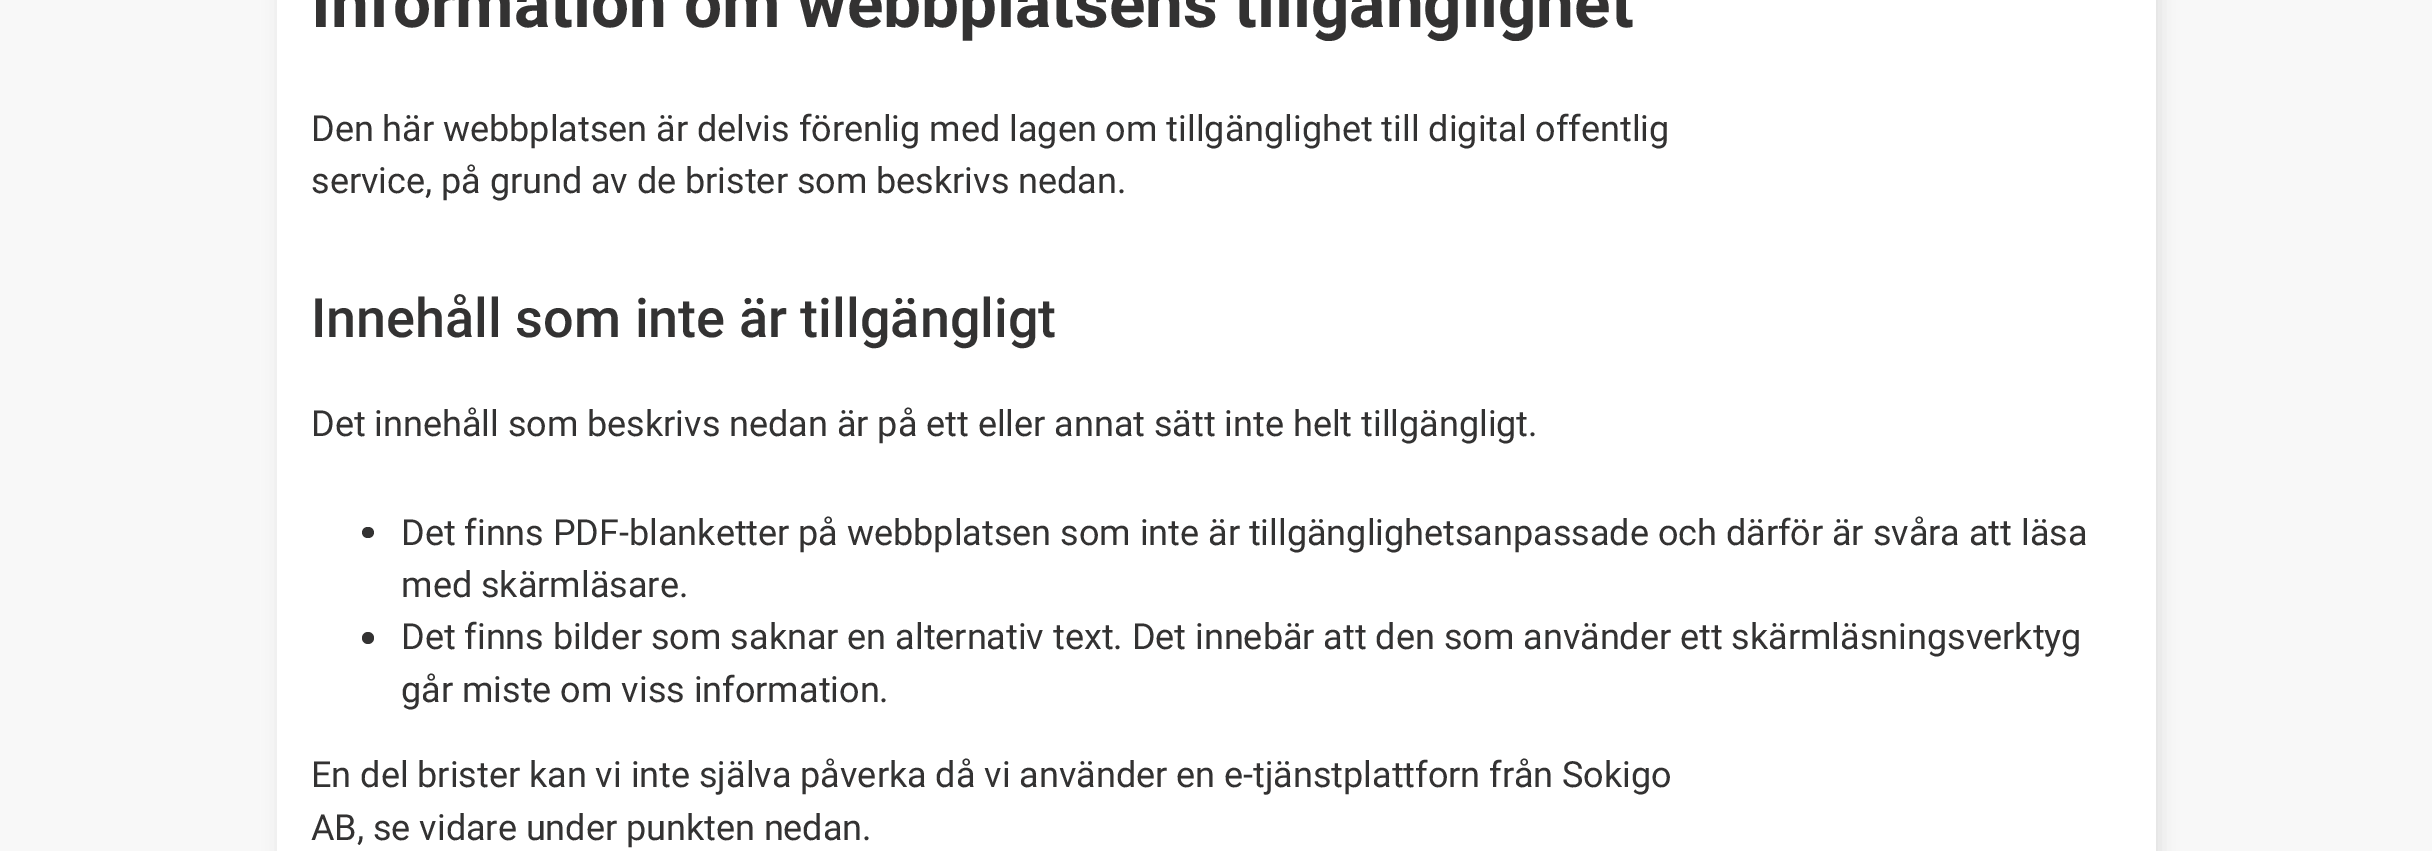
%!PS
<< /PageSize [2432 851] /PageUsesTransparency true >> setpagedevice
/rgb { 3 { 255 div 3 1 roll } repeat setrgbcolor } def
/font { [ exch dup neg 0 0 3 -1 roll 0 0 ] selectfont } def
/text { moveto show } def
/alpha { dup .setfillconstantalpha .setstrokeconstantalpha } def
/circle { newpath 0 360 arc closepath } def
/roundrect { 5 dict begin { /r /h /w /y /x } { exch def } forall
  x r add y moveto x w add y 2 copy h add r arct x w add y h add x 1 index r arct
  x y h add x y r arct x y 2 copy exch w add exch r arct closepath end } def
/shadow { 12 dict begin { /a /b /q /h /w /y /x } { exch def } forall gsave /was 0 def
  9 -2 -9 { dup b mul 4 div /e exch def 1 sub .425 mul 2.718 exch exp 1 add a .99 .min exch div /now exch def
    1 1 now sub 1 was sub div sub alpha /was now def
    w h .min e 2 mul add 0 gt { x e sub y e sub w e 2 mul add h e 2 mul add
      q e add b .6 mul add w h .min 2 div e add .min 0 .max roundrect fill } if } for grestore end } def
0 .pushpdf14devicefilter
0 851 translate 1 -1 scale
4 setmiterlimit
248 248 248 rgb
0 0 2432 851 rectfill
0 0 0 rgb
281 -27 1879 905 0 9 0.1 shadow
255 255 255 rgb
277 0 1879 851 rectfill
51 50 50 rgb
362 527 12 11 5.5 roundrect fill
368 638 6 circle fill
/Roboto-Bold 67.5 font
(Information om webbplatsens tillgänglighet) 311 27 text
/Roboto-Regular 36 font
(Den här webbplatsen är delvis förenlig med lagen om tillgänglighet till digital offentlig) 311 141 text
(service, på grund av de brister som beskrivs nedan.) 311 193 text
/Roboto-Medium 54 font
(Innehåll som inte är tillgängligt) 311 337 text
/Roboto-Regular 36 font
(Det innehåll som beskrivs nedan är på ett eller annat sätt inte helt tillgängligt.) 311 436 text
(Det finns PDF-blanketter på webbplatsen som inte är tillgänglighetsanpassade och därför är svåra att läsa) 401 545 text
(med skärmläsare.) 401 597 text
(Det finns bilder som saknar en alternativ text. Det innebär att den som använder ett skärmläsningsverktyg) 401 649 text
(går miste om viss information.) 401 702 text
(En del brister kan vi inte själva påverka då vi använder en e-tjänstplattforn från Sokigo) 311 787 text
(AB, se vidare under punkten nedan.) 311 840 text
.poppdf14devicefilter showpage
